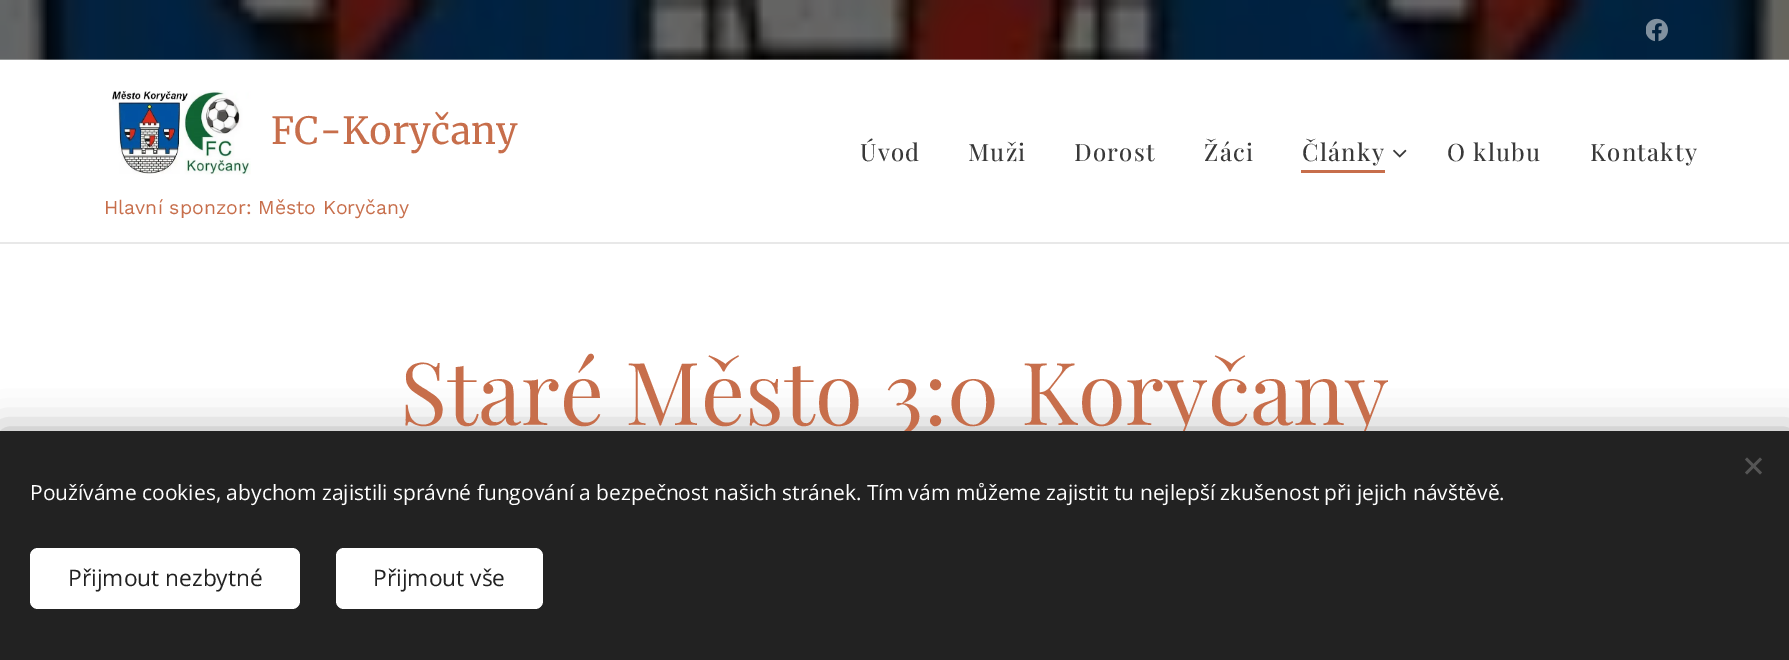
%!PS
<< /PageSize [1789 660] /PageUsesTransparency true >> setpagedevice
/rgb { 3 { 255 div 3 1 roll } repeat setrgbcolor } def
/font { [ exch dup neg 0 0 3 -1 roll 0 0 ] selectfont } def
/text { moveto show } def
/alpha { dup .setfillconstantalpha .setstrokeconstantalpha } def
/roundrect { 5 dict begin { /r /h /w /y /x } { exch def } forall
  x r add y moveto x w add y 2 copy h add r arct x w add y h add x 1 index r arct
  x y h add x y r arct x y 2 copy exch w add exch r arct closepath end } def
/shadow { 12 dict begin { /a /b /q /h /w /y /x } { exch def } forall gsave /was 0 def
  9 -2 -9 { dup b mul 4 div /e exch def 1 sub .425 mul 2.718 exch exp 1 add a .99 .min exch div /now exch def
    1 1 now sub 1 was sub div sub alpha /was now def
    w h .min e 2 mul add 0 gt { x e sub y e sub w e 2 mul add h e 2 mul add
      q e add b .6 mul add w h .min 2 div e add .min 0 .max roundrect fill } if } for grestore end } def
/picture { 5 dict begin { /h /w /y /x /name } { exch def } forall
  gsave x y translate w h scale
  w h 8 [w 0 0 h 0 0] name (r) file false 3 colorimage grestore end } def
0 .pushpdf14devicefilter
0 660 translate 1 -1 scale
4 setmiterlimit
255 255 255 rgb
0 0 1789 660 rectfill
(img_01.rgb) 0 0 1789 60 picture
(img_02.rgb) 1646 18 22 24 picture
0.3 alpha
0 59 1789 1 rectfill
1 alpha
(img_03.rgb) 112 90 139 85 picture
199 110 75 rgb
1301 170 84 3 rectfill
(img_04.rgb) 1393 149 14 9 picture
232 232 232 rgb
0 242 1789 2 rectfill
0 0 0 rgb
0 431 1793 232 0 19 0.33 shadow
/Merriweather-Regular 37.5 font
199 110 75 rgb
(FC-Koryčany) 271 144 text
/WorkSans-Regular 19.5 font
(Hlavní sponzor: Město Koryčany) 104 214 text
/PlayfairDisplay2-Regular 24 font
57 57 57 rgb
860 161 moveto 1.25 0 (Úvod) ashow
968 161 moveto 1.25 0 (Muži) ashow
1074 161 moveto 1.25 0 (Dorost) ashow
1204 161 moveto 1.25 0 (Žáci) ashow
1302 161 moveto 1.25 0 (Články) ashow
1447 161 moveto 1.25 0 (O klubu) ashow
1590 161 moveto 1.25 0 (Kontakty) ashow
/PlayfairDisplay-Regular 87 font
199 110 75 rgb
(Staré Město 3:0 Koryčany) 400 425 text
34 34 34 rgb
0 431 1789 229 rectfill
85 85 85 rgb
1745 472.5 moveto 15 -15 rlineto 2 2 rlineto -15 15 rlineto closepath fill
1747 457.5 moveto 15 15 rlineto -2 2 rlineto -15 -15 rlineto closepath fill
/OpenSans-Regular 21 font
255 255 255 rgb
(Používáme cookies, abychom zajistili správné fungování a bezpečnost našich stránek. Tím vám můžeme zajistit tu nejlepší zkušenost při jejich návštěvě.) 30 500 text
30 548 270 61 8 roundrect fill
/OpenSans-Regular 22.75 font
34 34 34 rgb
(Přijmout nezbytné) 68 586 text
255 255 255 rgb
336 548 207 61 8 roundrect fill
34 34 34 rgb
(Přijmout vše) 373 586 text
.poppdf14devicefilter showpage
